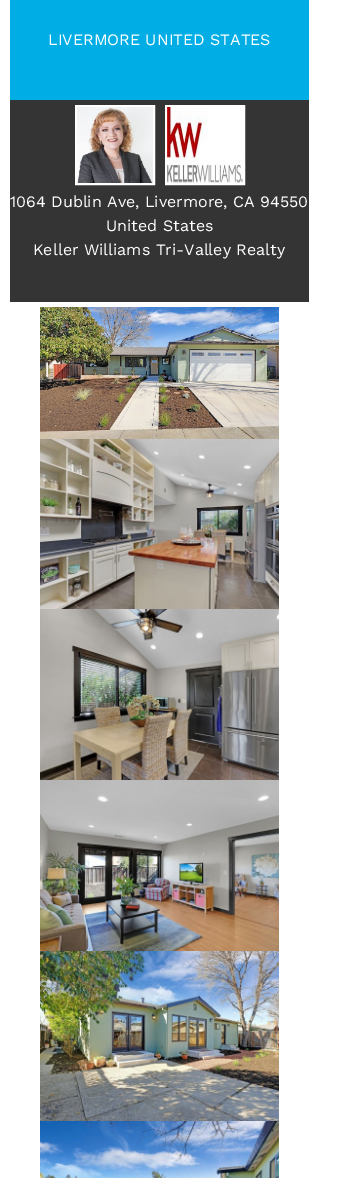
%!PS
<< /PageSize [339 1178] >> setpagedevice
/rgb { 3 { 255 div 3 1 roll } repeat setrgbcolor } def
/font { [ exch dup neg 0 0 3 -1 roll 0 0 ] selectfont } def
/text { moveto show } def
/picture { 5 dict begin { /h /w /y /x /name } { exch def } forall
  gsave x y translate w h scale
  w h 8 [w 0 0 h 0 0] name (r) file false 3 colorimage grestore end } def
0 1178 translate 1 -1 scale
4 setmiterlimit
255 255 255 rgb
0 0 339 1178 rectfill
0 174 229 rgb
10 0 299 100 rectfill
52 52 52 rgb
10 100 299 202 rectfill
255 255 255 rgb
2 setlinewidth
76 106 78 78 rectstroke
(img_01.rgb) 77 107 76 76 picture
166 106 78 78 rectstroke
(img_02.rgb) 167 107 76 76 picture
(img_03.rgb) 40 307 239 132 picture
(img_04.rgb) 40 439 239 170 picture
(img_05.rgb) 40 609 239 171 picture
(img_06.rgb) 40 780 239 171 picture
(img_07.rgb) 40 951 239 170 picture
(img_08.rgb) 40 1121 239 57 picture
/WorkSans-Regular 16 font
(LIVERMORE UNITED STATES) 48 45 text
(1064 Dublin Ave, Livermore, CA 94550) 10 207 text
(United States) 106 231 text
(Keller Williams Tri-Valley Realty) 33 255 text
showpage
